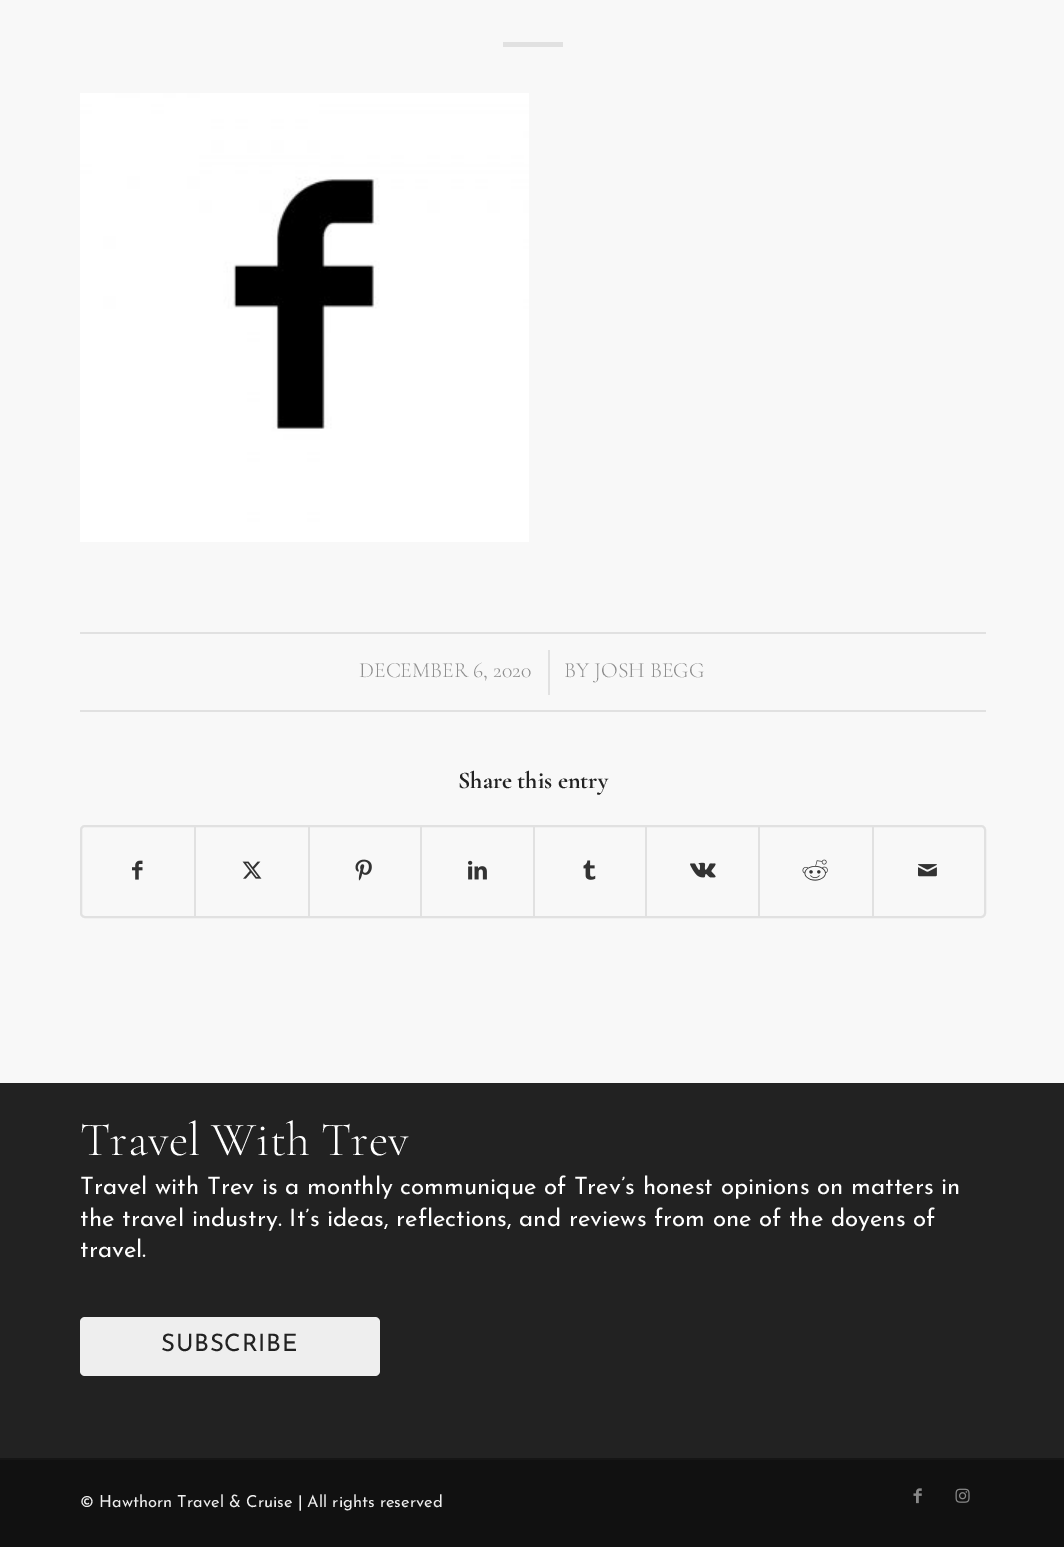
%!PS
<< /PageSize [1064 1547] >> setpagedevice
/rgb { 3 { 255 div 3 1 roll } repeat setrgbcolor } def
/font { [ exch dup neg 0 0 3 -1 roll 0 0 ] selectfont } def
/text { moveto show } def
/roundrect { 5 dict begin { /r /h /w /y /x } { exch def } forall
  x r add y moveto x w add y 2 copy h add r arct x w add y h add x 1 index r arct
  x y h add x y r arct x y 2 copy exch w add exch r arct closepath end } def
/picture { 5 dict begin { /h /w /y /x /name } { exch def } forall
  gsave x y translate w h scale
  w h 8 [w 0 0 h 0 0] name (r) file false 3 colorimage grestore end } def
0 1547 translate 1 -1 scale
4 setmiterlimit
34 34 34 rgb
0 0 1064 1547 rectfill
248 248 248 rgb
0 0 1064 1083 rectfill
225 225 225 rgb
503 42 60 5 rectfill
(img_01.rgb) 80 93 449 449 picture
80 632 906 2 rectfill
80 710 906 2 rectfill
548 650 2 45 rectfill
2 setlinewidth
81 826 904 91 4 roundrect stroke
(img_02.rgb) 132 860 11 20 picture
194 827 2 90 rectfill
(img_03.rgb) 242 861 20 18 picture
308 827 2 90 rectfill
(img_04.rgb) 355 859 17 22 picture
420 827 2 90 rectfill
(img_05.rgb) 468 860 19 20 picture
533 827 2 90 rectfill
(img_06.rgb) 583 860 13 20 picture
645 827 2 90 rectfill
(img_07.rgb) 690 862 26 16 picture
758 827 2 90 rectfill
(img_08.rgb) 802 859 26 22 picture
872 827 2 90 rectfill
(img_09.rgb) 918 864 19 13 picture
238 238 238 rgb
80 1317 300 59 5 roundrect fill
17 17 17 rgb
0 1460 1064 87 rectfill
22 22 22 rgb
0 1458 1064 2 rectfill
(img_10.rgb) 913 1488 9 16 picture
(img_11.rgb) 955 1488 15 15 picture
/CormorantGaramond-Light 21.75 font
141 141 141 rgb
(DECEMBER 6, 2020) 359 677 text
(BY JOSH BEGG) 564 677 text
/CormorantGaramond-Bold 24 font
34 34 34 rgb
(Share this entry) 458 788 text
/CormorantGaramond-Light 48 font
255 255 255 rgb
(Travel With Trev) 80 1155 text
/JosefinSans-Thin 24 font
(Travel with Trev is a monthly communique of Trev’s honest opinions on matters in) 80 1194 text
(the travel industry. It’s ideas, reflections, and reviews from one of the doyens of) 80 1226 text
(travel.) 80 1257 text
34 34 34 rgb
161 1351 moveto 0.75 0 (SUBSCRIBE) ashow
/JosefinSans-Thin 16.5 font
238 238 238 rgb
(© Hawthorn Travel & Cruise | All rights reserved) 80 1507 text
showpage
